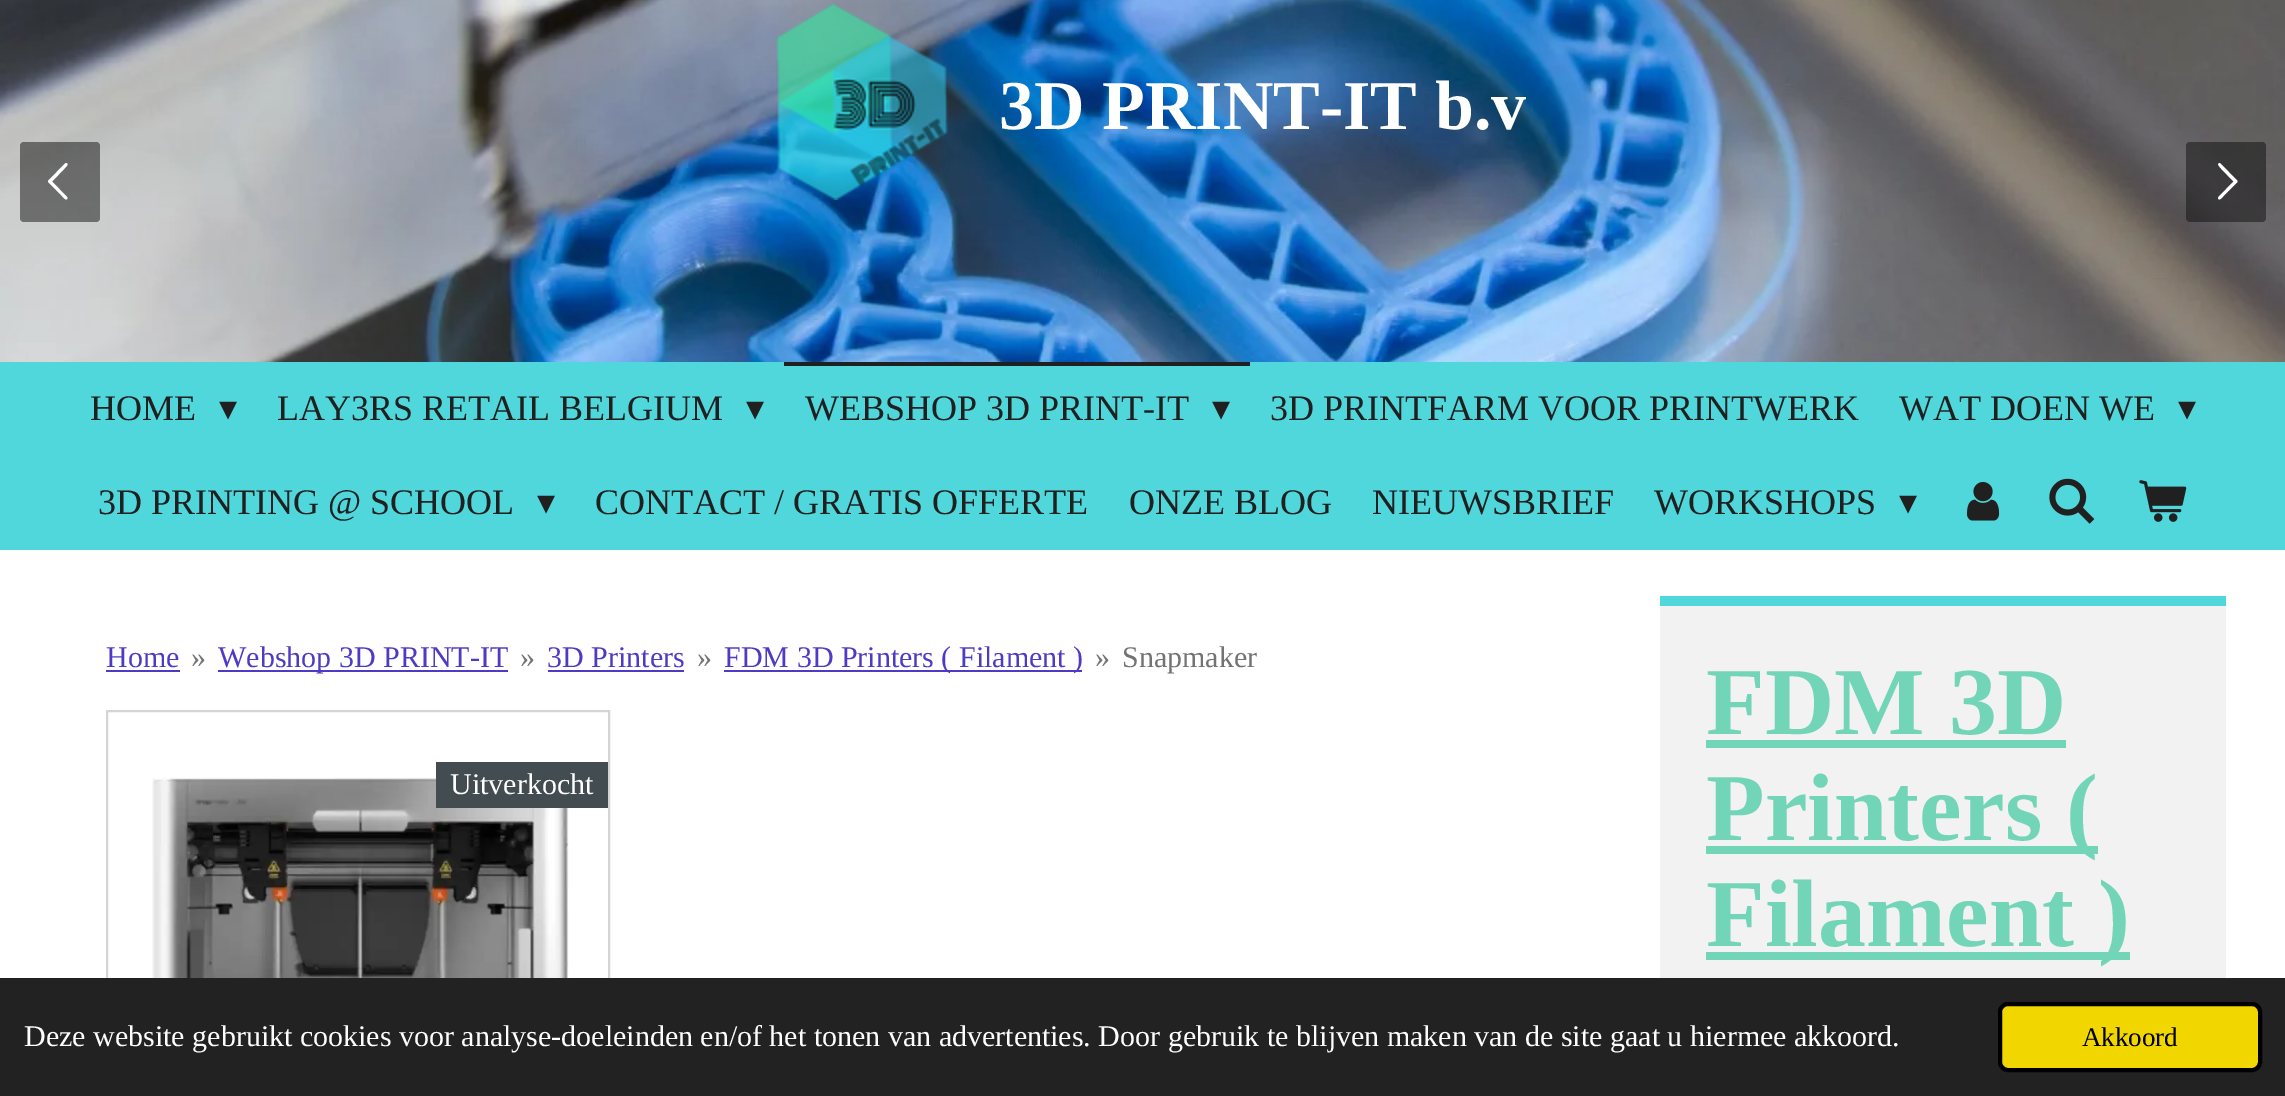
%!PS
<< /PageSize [2285 1096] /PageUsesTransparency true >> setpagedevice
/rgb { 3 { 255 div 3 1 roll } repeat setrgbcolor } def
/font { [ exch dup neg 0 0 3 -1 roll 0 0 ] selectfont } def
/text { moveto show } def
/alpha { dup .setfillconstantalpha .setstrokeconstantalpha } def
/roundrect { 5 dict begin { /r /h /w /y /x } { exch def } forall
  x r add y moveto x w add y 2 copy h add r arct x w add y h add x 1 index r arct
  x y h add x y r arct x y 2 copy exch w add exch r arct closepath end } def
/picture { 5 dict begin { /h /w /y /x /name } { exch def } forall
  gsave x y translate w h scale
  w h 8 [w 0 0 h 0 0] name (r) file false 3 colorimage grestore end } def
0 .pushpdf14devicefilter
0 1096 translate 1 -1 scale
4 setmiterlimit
255 255 255 rgb
0 0 2285 1096 rectfill
(img_01.rgb) 0 0 2285 362 picture
0.5 alpha
15 15 15 rgb
20 142 80 80 4 roundrect fill
1 alpha
255 255 255 rgb
67 197 moveto 0.5 1 rlineto -1 4 -5 -1.5 -5.5 -2 rcurveto -14 -14 rlineto 0 -1 rlineto 17 -17.5 rlineto 1 -0.5 rlineto 4 1 -1 4.5 -1.5 5.5 rcurveto -12.5 13 rlineto closepath fill
0.5 alpha
15 15 15 rgb
2186 142 80 80 4 roundrect fill
1 alpha
255 255 255 rgb
2218.5 197 moveto 15 -15.5 rlineto -12.5 -13 rlineto -0.5 -1 -5 -4.5 -1.5 -5.5 rcurveto 1 0.5 rlineto 17 17.5 rlineto 0 1 rlineto -14 14 rlineto -0.5 0.5 -4.5 6 -5.5 2 rcurveto closepath fill
(img_02.rgb) 775 3 174 197 picture
80 215 219 rgb
0 362 2285 188 rectfill
32 32 32 rgb
784 362 466 4 rectfill
(img_03.rgb) 1966 482 34 39 picture
(img_04.rgb) 2049 478 46 46 picture
(img_05.rgb) 2139 480 48 42 picture
78 58 196 rgb
106 670 74 2 rectfill
218 670 290 2 rectfill
548 670 136 2 rectfill
724 670 358 2 rectfill
213 213 213 rgb
2 setlinewidth
107 711 502 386 rectstroke
(img_06.rgb) 152 777 417 201 picture
66 76 81 rgb
436 762 172 46 rectfill
242 242 242 rgb
1660 606 566 372 rectfill
80 215 219 rgb
1660 596 566 10 rectfill
115 213 184 rgb
1706 740 360 8 rectfill
1706 846 392 8 rectfill
1706 952 424 8 rectfill
34 34 34 rgb
0 978 2285 118 rectfill
241 214 0 rgb
2000 1004 260 66 8 roundrect gsave fill grestore
0 0 0 rgb
4 setlinewidth
stroke
/LiberationSerif-Bold 70 font
255 255 255 rgb
(3D PRINT-IT b.v) 999 129 text
/LiberationSerif-Regular 36 font
32 32 32 rgb
(HOME) 90 420 text
/DejaVuSans-Regular 36 font
(▾) 219 420 text
/LiberationSerif-Regular 36 font
(LAY3RS RETAIL BELGIUM) 277 420 text
/DejaVuSans-Regular 36 font
(▾) 746 420 text
/LiberationSerif-Regular 36 font
(WEBSHOP 3D PRINT-IT) 805 420 text
/DejaVuSans-Regular 36 font
(▾) 1212 420 text
/LiberationSerif-Regular 36 font
(3D PRINTFARM VOOR PRINTWERK) 1270 420 text
(WAT DOEN WE) 1899 420 text
/DejaVuSans-Regular 36 font
(▾) 2178 420 text
/LiberationSerif-Regular 36 font
(3D PRINTING @ SCHOOL) 98 514 text
/DejaVuSans-Regular 36 font
(▾) 537 514 text
/LiberationSerif-Regular 36 font
(CONTACT / GRATIS OFFERTE) 595 514 text
(ONZE BLOG) 1129 514 text
(NIEUWSBRIEF) 1372 514 text
(WORKSHOPS) 1654 514 text
/DejaVuSans-Regular 36 font
(▾) 1899 514 text
/LiberationSerif-Regular 30 font
78 58 196 rgb
(Home) 106 667 text
115 115 115 rgb
(») 191 667 text
78 58 196 rgb
(Webshop 3D PRINT-IT) 218 667 text
115 115 115 rgb
(») 520 667 text
78 58 196 rgb
(3D Printers) 547 667 text
115 115 115 rgb
(») 697 667 text
78 58 196 rgb
(FDM 3D Printers \( Filament \)) 724 667 text
115 115 115 rgb
(») 1095 667 text
(Snapmaker) 1122 667 text
255 255 255 rgb
(Uitverkocht) 450 794 text
/LiberationSerif-Bold 96 font
115 213 184 rgb
(FDM 3D) 1706 734 text
(Printers \() 1706 840 text
(Filament \)) 1706 946 text
/LiberationSerif-Regular 30 font
255 255 255 rgb
(Deze website gebruikt cookies voor analyse-doeleinden en/of het tonen van advertenties. Door gebruik te blijven maken van de site gaat u hiermee akkoord.) 24 1046 text
/LiberationSerif-Regular 27 font
0 0 0 rgb
(Akkoord) 2082 1046 text
.poppdf14devicefilter showpage
